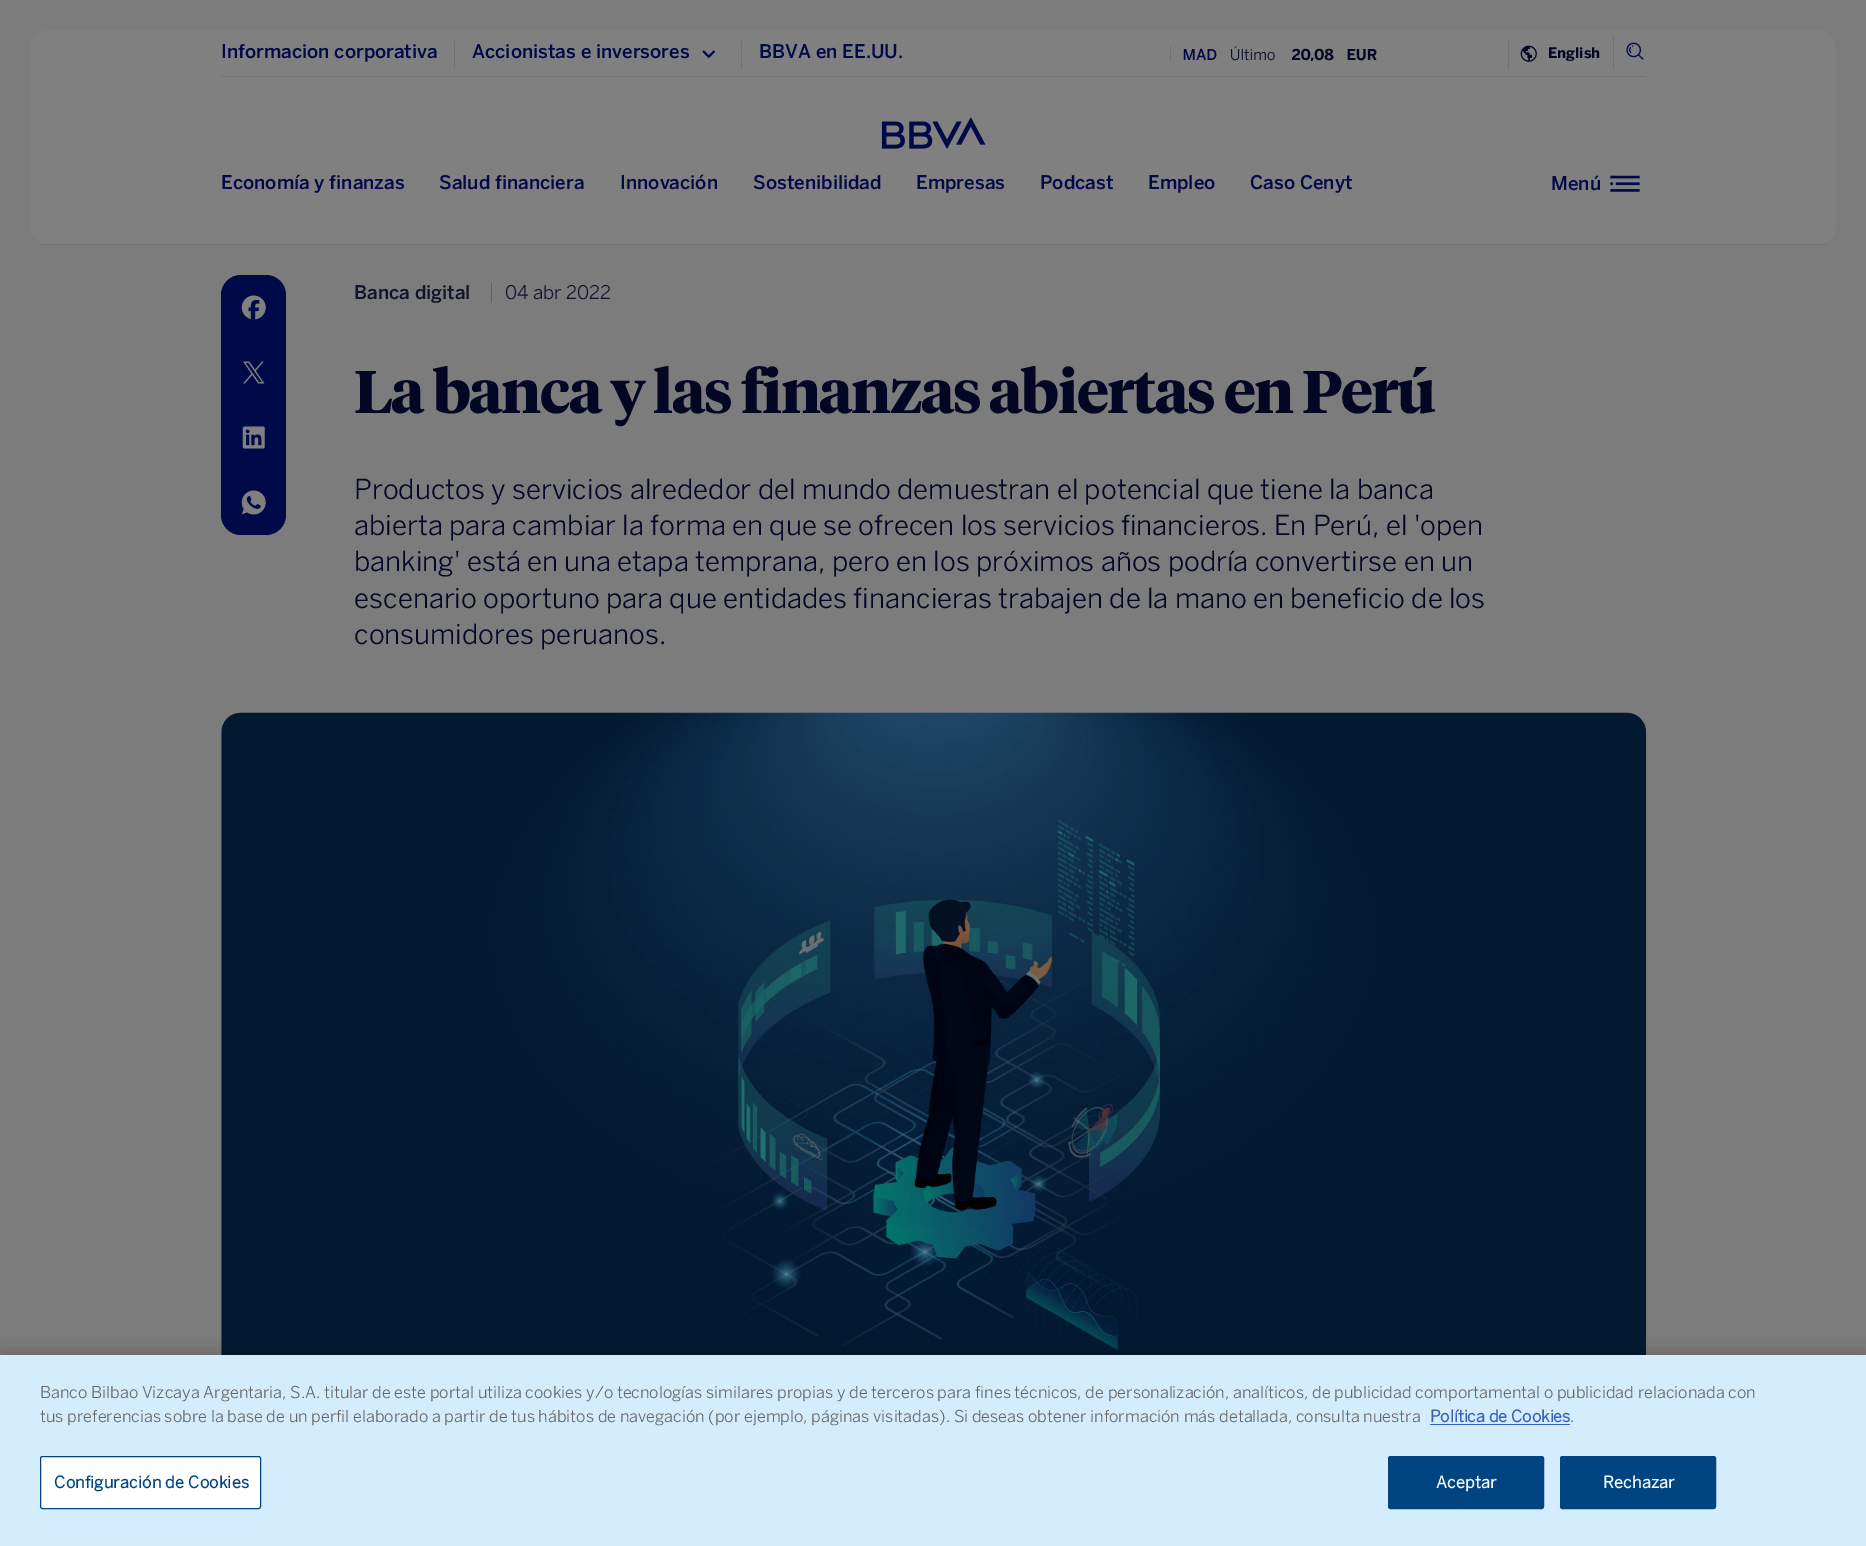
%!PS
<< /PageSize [1866 1546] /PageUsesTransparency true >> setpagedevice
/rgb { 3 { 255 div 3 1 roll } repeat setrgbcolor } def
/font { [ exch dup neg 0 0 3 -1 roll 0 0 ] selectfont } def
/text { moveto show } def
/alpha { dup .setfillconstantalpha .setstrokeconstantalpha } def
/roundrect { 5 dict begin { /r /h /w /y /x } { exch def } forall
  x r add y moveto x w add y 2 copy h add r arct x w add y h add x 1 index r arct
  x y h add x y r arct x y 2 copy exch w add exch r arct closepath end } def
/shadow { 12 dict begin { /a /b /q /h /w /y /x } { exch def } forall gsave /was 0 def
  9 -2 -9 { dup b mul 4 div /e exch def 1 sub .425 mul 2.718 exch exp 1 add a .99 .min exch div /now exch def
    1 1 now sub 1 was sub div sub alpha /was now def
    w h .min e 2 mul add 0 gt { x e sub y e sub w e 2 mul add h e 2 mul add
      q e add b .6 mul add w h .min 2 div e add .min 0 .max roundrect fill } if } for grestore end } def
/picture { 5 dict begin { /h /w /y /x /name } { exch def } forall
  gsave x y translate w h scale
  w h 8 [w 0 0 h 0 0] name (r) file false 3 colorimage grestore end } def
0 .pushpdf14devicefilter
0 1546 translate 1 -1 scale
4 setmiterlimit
124 124 124 rgb
0 0 1866 1546 rectfill
128 128 128 rgb
30 30 1806 215 20 roundrect fill
117 117 117 rgb
40 244 1786 1 rectfill
221 76 1425 1 rectfill
113 113 113 rgb
454 41 1 28 rectfill
741 41 1 28 rectfill
(img_01.rgb) 702 50 14 9 picture
1170 46 1 15 rectfill
(img_02.rgb) 1183 46 194 16 picture
1508 39 1 30 rectfill
(img_03.rgb) 1520 45 17 17 picture
1613 36 1 34 rectfill
(img_04.rgb) 1626 42 18 18 picture
(img_05.rgb) 881 117 105 32 picture
(img_06.rgb) 1610 175 30 17 picture
0 10 73 rgb
221 275 65 260 20 roundrect fill
(img_07.rgb) 241 295 25 25 picture
(img_08.rgb) 243 361 22 23 picture
(img_09.rgb) 242 426 23 23 picture
(img_10.rgb) 241 490 25 25 picture
98 98 98 rgb
491 283 1 20 rectfill
(img_11.rgb) 221 712 1426 643 picture
0 0 0 rgb
0 1355 1866 191 0 11 0.2 shadow
212 237 252 rgb
0 1355 1866 191 rectfill
56 96 190 rgb
1430 1424 140 1 rectfill
255 255 255 rgb
40.5 1456.5 220 52 2 roundrect gsave fill grestore
0 68 129 rgb
stroke
1388.5 1456.5 155 52 2 roundrect gsave fill grestore
stroke
1560.5 1456.5 155 52 2 roundrect gsave fill grestore
stroke
/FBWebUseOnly-Medium 18.75 font
0 10 73 rgb
(Informacion corporativa) 221 58 text
(Accionistas e inversores) 472 58 text
(BBVA en EE.UU.) 759 58 text
/FBWebUseOnly-Bold 14.5 font
4 7 35 rgb
(English) 1548 58 text
/FBWebUseOnly-Medium 18.75 font
0 10 73 rgb
(Economía y finanzas) 221 189 text
(Salud financiera) 439 189 text
(Innovación) 620 189 text
(Sostenibilidad) 753 189 text
(Empresas) 916 189 text
(Podcast) 1040 189 text
(Empleo) 1148 189 text
(Caso Cenyt) 1250 189 text
(Menú) 1551 190 text
16 19 44 rgb
(Banca digital) 354 299 text
/FBWebUseOnly-Light 18.75 font
(04 abr 2022) 505 299 text
/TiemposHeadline-Bold 60 font
4 7 35 rgb
354 413 moveto -1.25 0 (La banca y las finanzas abiertas en Perú) ashow
/FBWebUseOnly-Light 27.5 font
(Productos y servicios alrededor del mundo demuestran el potencial que tiene la banca) 354 499 text
(abierta para cambiar la forma en que se ofrecen los servicios financieros. En Perú, el 'open) 354 535 text
(banking' está en una etapa temprana, pero en los próximos años podría convertirse en un) 354 571 text
(escenario oportuno para que entidades financieras trabajen de la mano en beneficio de los) 354 608 text
(consumidores peruanos.) 354 644 text
/FBWebUseOnly-Light 16.26 font
102 102 102 rgb
(Banco Bilbao Vizcaya Argentaria, S.A. titular de este portal utiliza cookies y/o tecnologías similares propias y de terceros para fines técnicos, de personalización, analíticos, de publicidad comportamental o publicidad relacionada con) 40 1398 text
(tus preferencias sobre la base de un perfil elaborado a partir de tus hábitos de navegación \(por ejemplo, páginas visitadas\). Si deseas obtener información más detallada, consulta nuestra) 40 1422 text
/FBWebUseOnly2-Bold 16.26 font
56 96 190 rgb
(Política de Cookies) 1430 1422 text
/FBWebUseOnly-Light 16.26 font
102 102 102 rgb
(.) 1570 1422 text
/FBWebUseOnly2-Bold 16.26 font
0 68 129 rgb
54 1488 moveto 0.2 0 (Configuración de Cookies) ashow
255 255 255 rgb
1436 1488 moveto 0.2 0 (Aceptar) ashow
1603 1488 moveto 0.2 0 (Rechazar) ashow
.poppdf14devicefilter showpage
